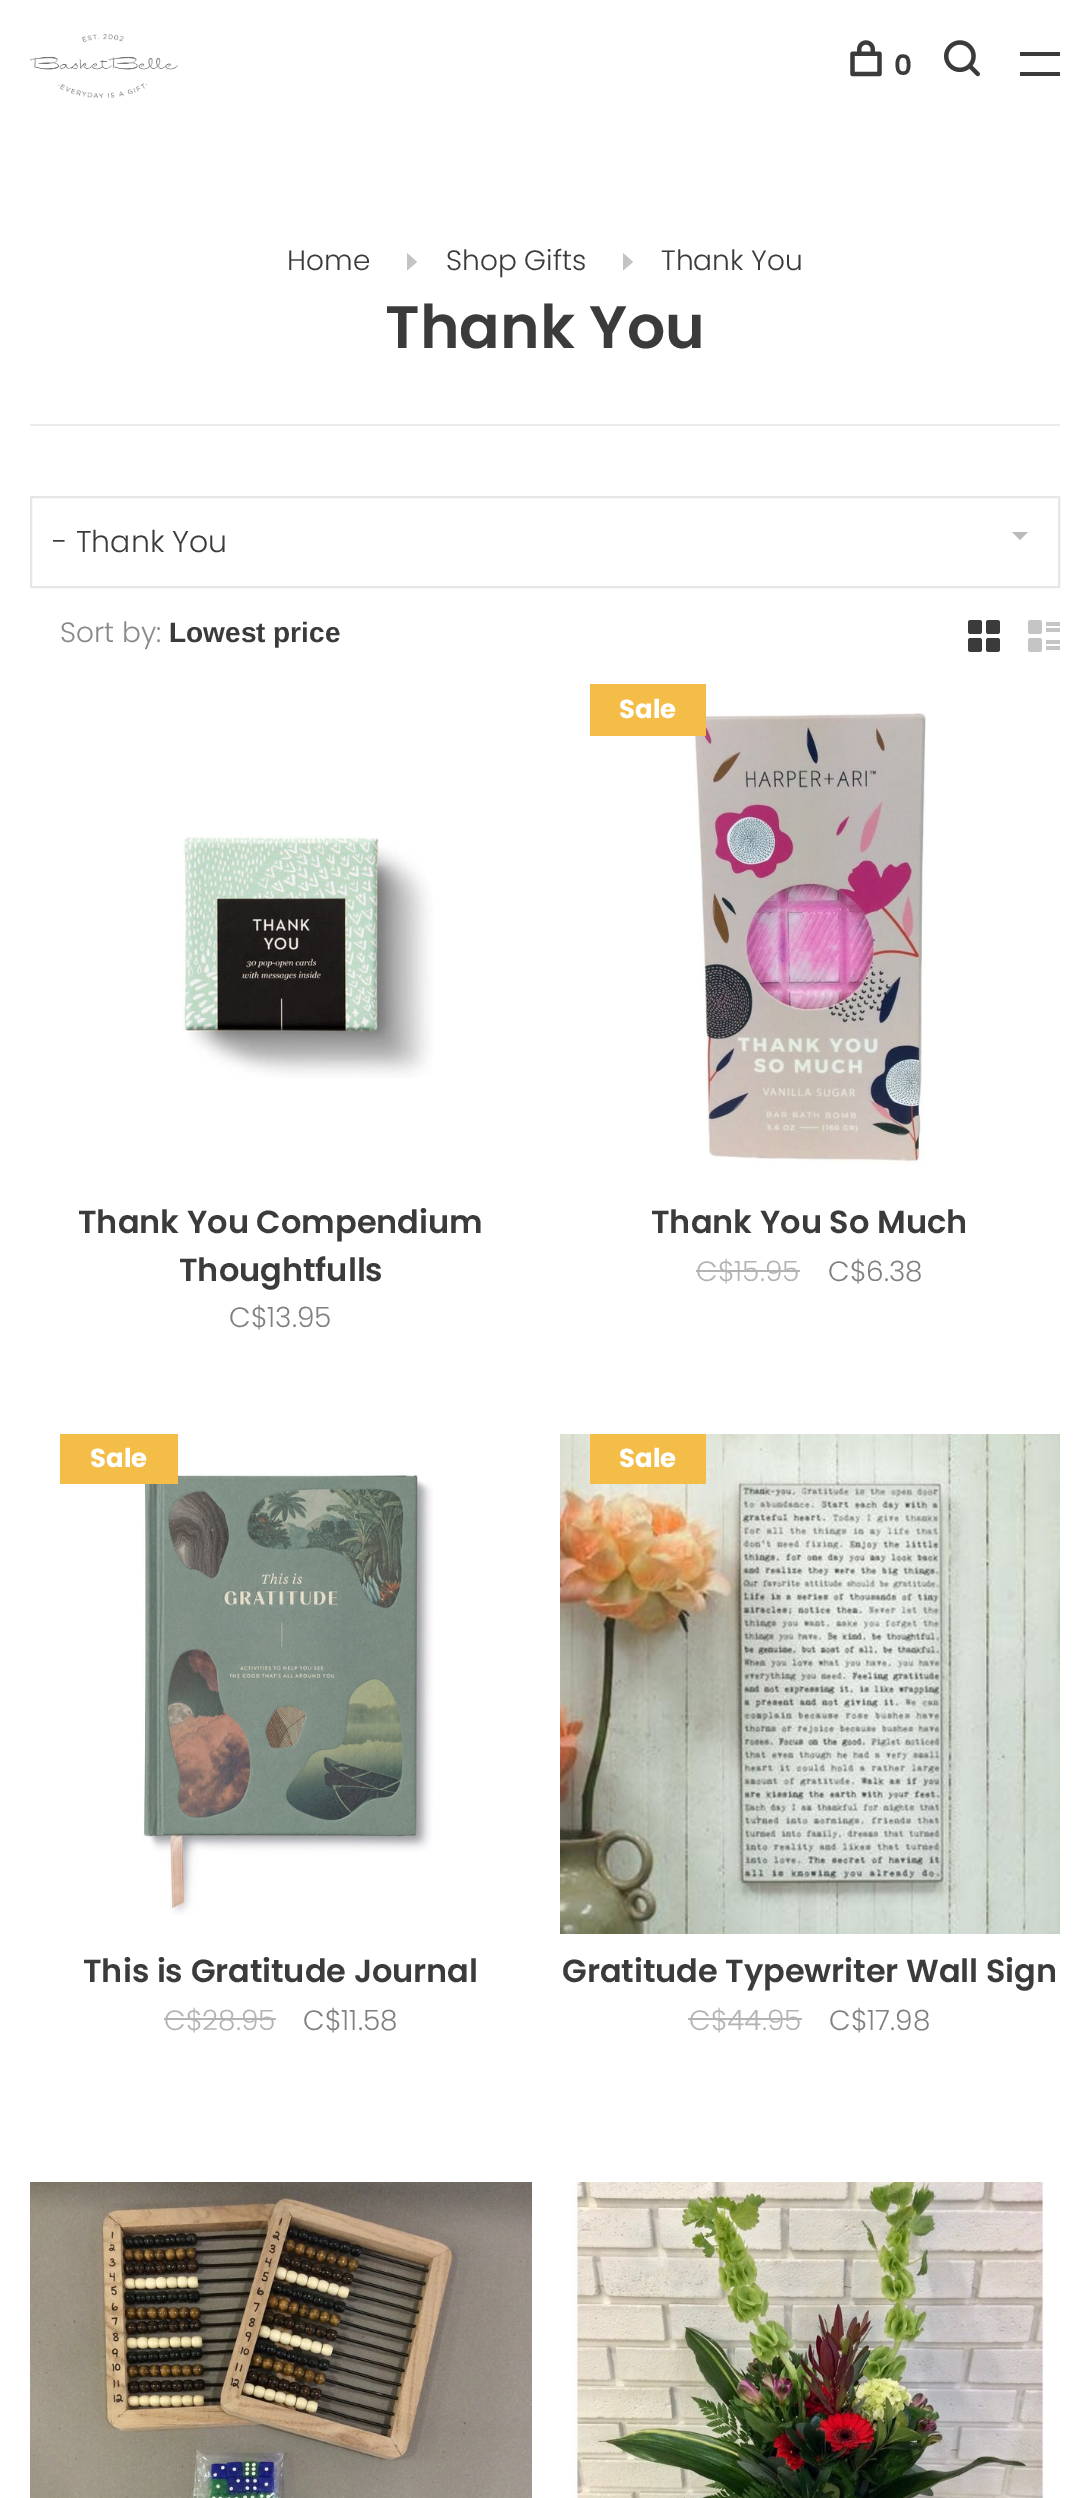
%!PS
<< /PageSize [1089 2498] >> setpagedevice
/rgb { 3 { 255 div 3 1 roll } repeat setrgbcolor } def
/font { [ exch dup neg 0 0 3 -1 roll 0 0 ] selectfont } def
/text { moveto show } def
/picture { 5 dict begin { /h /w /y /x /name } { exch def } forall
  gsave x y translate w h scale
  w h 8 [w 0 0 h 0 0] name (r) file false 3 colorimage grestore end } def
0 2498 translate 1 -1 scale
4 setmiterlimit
255 255 255 rgb
0 0 1089 2498 rectfill
(img_01.rgb) 30 34 148 64 picture
(img_02.rgb) 850 40 32 37 picture
(img_03.rgb) 944 40 36 37 picture
59 59 59 rgb
1020 52 40 4 rectfill
1020 72 40 4 rectfill
196 196 196 rgb
407 270.5 moveto 10 -8.5 rlineto -10 -9 rlineto closepath fill
623 270.5 moveto 10 -8.5 rlineto -10 -9 rlineto closepath fill
235 235 235 rgb
30 424 1030 2 rectfill
230 230 230 rgb
2 setlinewidth
31 497 1028 90 rectstroke
187 187 187 rgb
1012 532 moveto 16 0 rlineto -8 8 rlineto closepath fill
(img_04.rgb) 968 620 32 32 picture
(img_05.rgb) 1028 620 32 32 picture
(img_06.rgb) 182 836 251 242 picture
(img_07.rgb) 694 713 232 452 picture
243 189 72 rgb
590 684 116 52 rectfill
179 179 179 rgb
696 1270 104 2 rectfill
(img_08.rgb) 143 1472 290 443 picture
243 189 72 rgb
60 1434 118 50 rectfill
179 179 179 rgb
164 2018 112 2 rectfill
(img_09.rgb) 560 1434 500 500 picture
243 189 72 rgb
590 1434 116 50 rectfill
179 179 179 rgb
688 2018 114 2 rectfill
(img_10.rgb) 30 2182 502 316 picture
(img_11.rgb) 572 2182 473 316 picture
/Poppins-SemiBold 28 font
59 59 59 rgb
(0) 894 75 text
/Poppins-Light 28 font
(Home) 287 270 text
(Shop Gifts) 446 270 text
(Thank You) 661 270 text
/Poppins-SemiBold 60 font
(Thank You) 385 348 text
/Poppins-Light 30 font
(- Thank You) 52 552 text
/Poppins-Light 28 font
137 137 137 rgb
(Sort by:) 60 642 text
/LiberationSans-Bold 28 font
59 59 59 rgb
(Lowest price) 169 642 text
/Poppins-SemiBold 32 font
(Thank You Compendium) 78 1233 text
(Thoughtfulls) 179 1281 text
/Poppins-Light 28 font
128 128 128 rgb
(C$13.95) 229 1327 text
/Poppins-Bold 26 font
255 255 255 rgb
(Sale) 619 718 text
/Poppins-SemiBold 32 font
59 59 59 rgb
(Thank You So Much) 651 1233 text
/Poppins-Light 28 font
179 179 179 rgb
(C$15.95) 696 1281 text
128 128 128 rgb
(C$6.38) 828 1281 text
/Poppins-Bold 26 font
255 255 255 rgb
(Sale) 90 1467 text
/Poppins-SemiBold 32 font
59 59 59 rgb
(This is Gratitude Journal) 83 1982 text
/Poppins-Light 28 font
179 179 179 rgb
(C$28.95) 164 2030 text
128 128 128 rgb
(C$11.58) 303 2030 text
/Poppins-Bold 26 font
255 255 255 rgb
(Sale) 619 1467 text
/Poppins-SemiBold 32 font
59 59 59 rgb
(Gratitude Typewriter Wall Sign) 562 1982 text
/Poppins-Light 28 font
179 179 179 rgb
(C$44.95) 689 2030 text
128 128 128 rgb
(C$17.98) 829 2030 text
showpage
